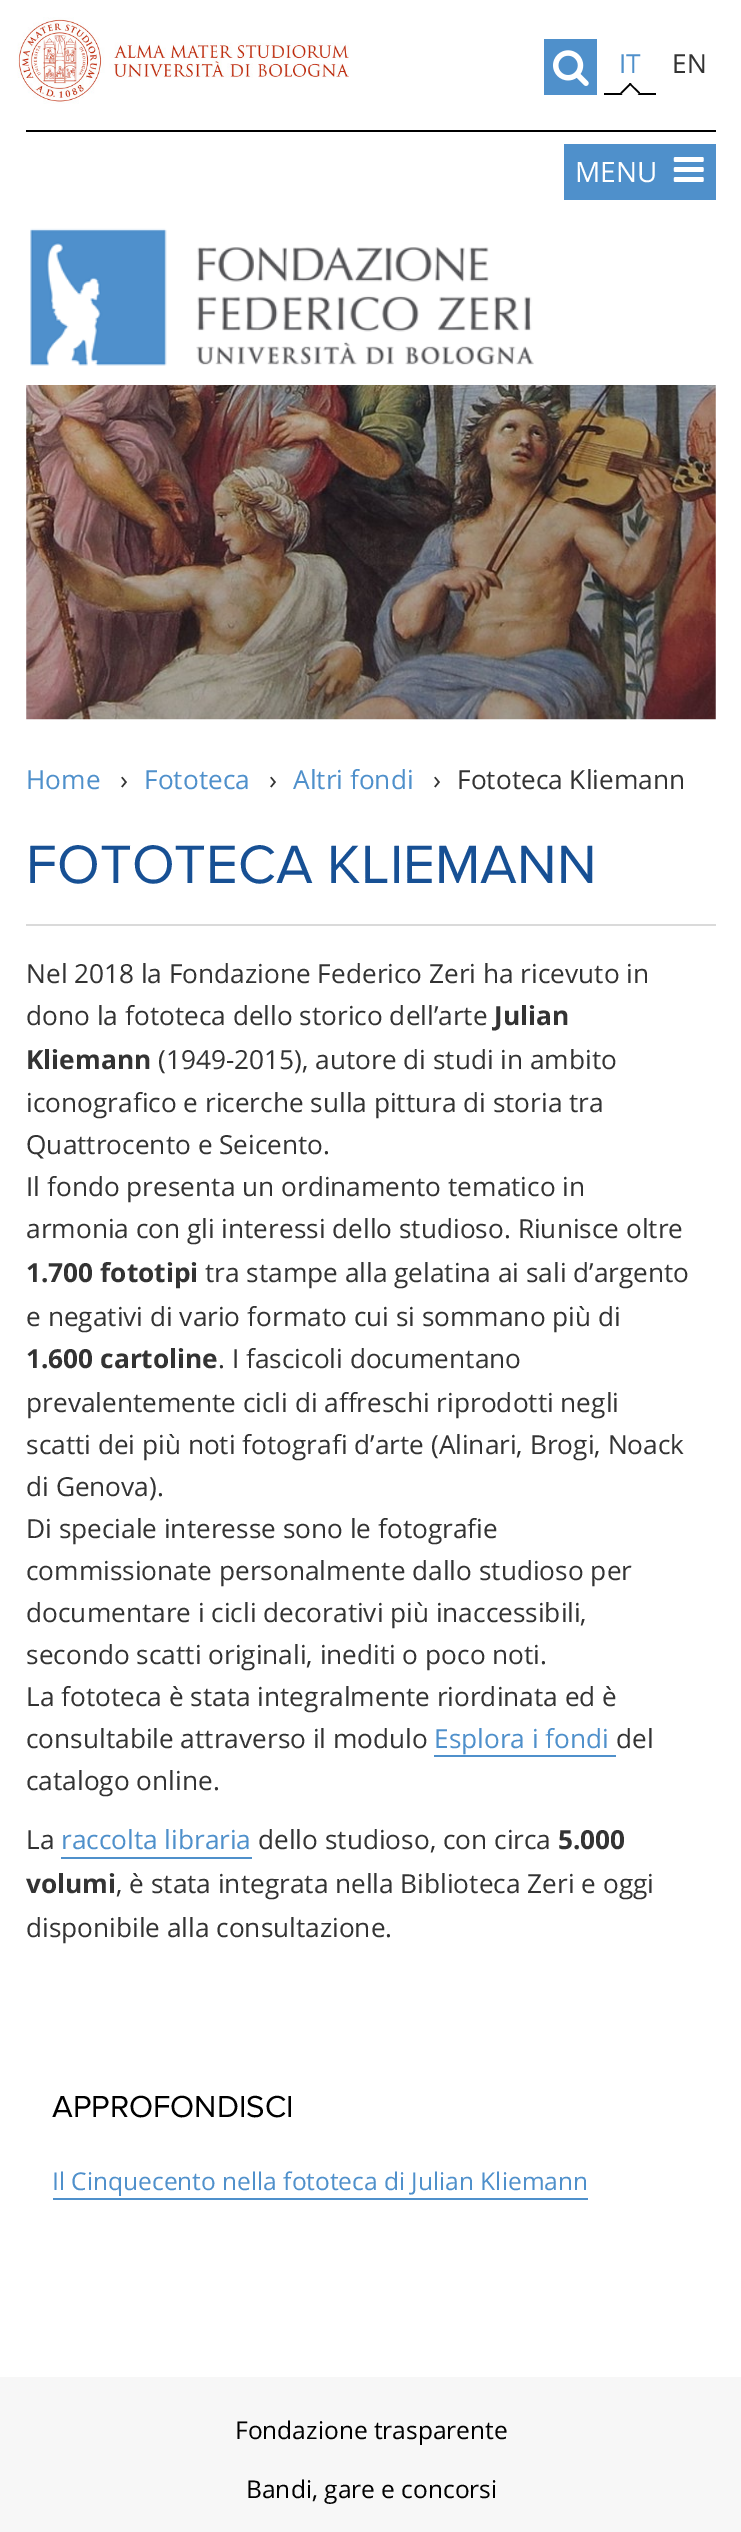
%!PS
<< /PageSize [741 2532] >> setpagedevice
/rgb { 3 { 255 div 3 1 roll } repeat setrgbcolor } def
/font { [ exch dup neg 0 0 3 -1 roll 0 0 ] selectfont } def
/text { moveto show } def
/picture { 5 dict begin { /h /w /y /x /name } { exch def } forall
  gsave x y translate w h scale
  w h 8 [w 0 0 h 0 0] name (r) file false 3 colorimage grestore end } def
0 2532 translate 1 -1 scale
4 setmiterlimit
255 255 255 rgb
0 0 741 2532 rectfill
(img_01.rgb) 17 17 332 87 picture
79 144 203 rgb
544 39 53 56 rectfill
(img_02.rgb) 553 50 36 36 picture
0 0 0 rgb
604 93 52 2 rectfill
255 255 255 rgb
630 83 moveto 10 9.5 rlineto -10 10 rlineto -9.5 -10 rlineto closepath fill
0 0 0 rgb
630 83 moveto 10 9.5 rlineto -1 1.5 rlineto -10 -10 rlineto closepath fill
630 83 moveto 1.5 1 rlineto -10 10 rlineto -1 -1.5 rlineto closepath fill
26 130 690 2 rectfill
79 144 203 rgb
564 144 152 56 rectfill
(img_03.rgb) 673 157 31 25 picture
(img_04.rgb) 30 228 504 138 picture
(img_05.rgb) 26 385 690 335 picture
218 218 218 rgb
26 924 690 2 rectfill
79 144 203 rgb
434 1755 182 2 rectfill
61 1857 191 2 rectfill
53 2198 535 2 rectfill
247 247 247 rgb
0 2377 741 155 rectfill
/OpenSans-Regular 26.25 font
79 144 203 rgb
(IT) 619 73 text
51 51 51 rgb
(EN) 672 73 text
/OpenSans-Regular 28 font
255 255 255 rgb
(MENU) 575 182 text
/OpenSans-Regular 26.25 font
79 144 203 rgb
(Home) 26 789 text
51 51 51 rgb
(›) 120 789 text
79 144 203 rgb
(Fototeca) 144 789 text
51 51 51 rgb
(›) 269 789 text
79 144 203 rgb
(Altri fondi) 293 789 text
51 51 51 rgb
(›) 433 789 text
(Fototeca Kliemann) 457 789 text
/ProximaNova-Regular 56 font
23 80 148 rgb
(FOTOTECA KLIEMANN) 26 883 text
/OpenSans-Regular 26.25 font
51 51 51 rgb
(Nel 2018 la Fondazione Federico Zeri ha ricevuto in) 26 983 text
(dono la fototeca dello storico dell’arte) 26 1025 text
/OpenSans-Bold 26.25 font
(Julian) 494 1025 text
(Kliemann) 26 1069 text
/OpenSans-Regular 26.25 font
(\(1949-2015\), autore di studi in ambito) 158 1069 text
(iconografico e ricerche sulla pittura di storia tra) 26 1112 text
(Quattrocento e Seicento.) 26 1154 text
(Il fondo presenta un ordinamento tematico in) 26 1196 text
(armonia con gli interessi dello studioso. Riunisce oltre) 26 1238 text
/OpenSans-Bold 26.25 font
(1.700 fototipi) 26 1282 text
/OpenSans-Regular 26.25 font
(tra stampe alla gelatina ai sali d’argento) 205 1282 text
(e negativi di vario formato cui si sommano più di) 26 1326 text
/OpenSans-Bold 26.25 font
(1.600 cartoline) 26 1368 text
/OpenSans-Regular 26.25 font
(. I fascicoli documentano) 218 1368 text
(prevalentemente cicli di affreschi riprodotti negli) 26 1412 text
(scatti dei più noti fotografi d’arte \(Alinari, Brogi, Noack) 26 1454 text
(di Genova\).) 26 1496 text
(Di speciale interesse sono le fotografie) 26 1538 text
(commissionate personalmente dallo studioso per) 26 1580 text
(documentare i cicli decorativi più inaccessibili,) 26 1622 text
(secondo scatti originali, inediti o poco noti.) 26 1664 text
(La fototeca è stata integralmente riordinata ed è) 26 1706 text
(consultabile attraverso il modulo) 26 1748 text
79 144 203 rgb
(Esplora i fondi) 434 1748 text
51 51 51 rgb
(del) 616 1748 text
(catalogo online.) 26 1790 text
(La) 26 1849 text
79 144 203 rgb
(raccolta libraria) 61 1849 text
51 51 51 rgb
(dello studioso, con circa) 258 1849 text
/OpenSans-Bold 26.25 font
(5.000) 558 1849 text
(volumi) 26 1893 text
/OpenSans-Regular 26.25 font
(, è stata integrata nella Biblioteca Zeri e oggi) 116 1893 text
(disponibile alla consultazione.) 26 1937 text
/ProximaNova-Regular 31.5 font
0 0 0 rgb
(APPROFONDISCI) 52 2117 text
/OpenSans-Regular 24.5 font
79 144 203 rgb
(Il Cinquecento nella fototeca di Julian Kliemann) 52 2190 text
0 0 0 rgb
(Fondazione trasparente) 235 2439 text
(Bandi, gare e concorsi) 246 2498 text
showpage
